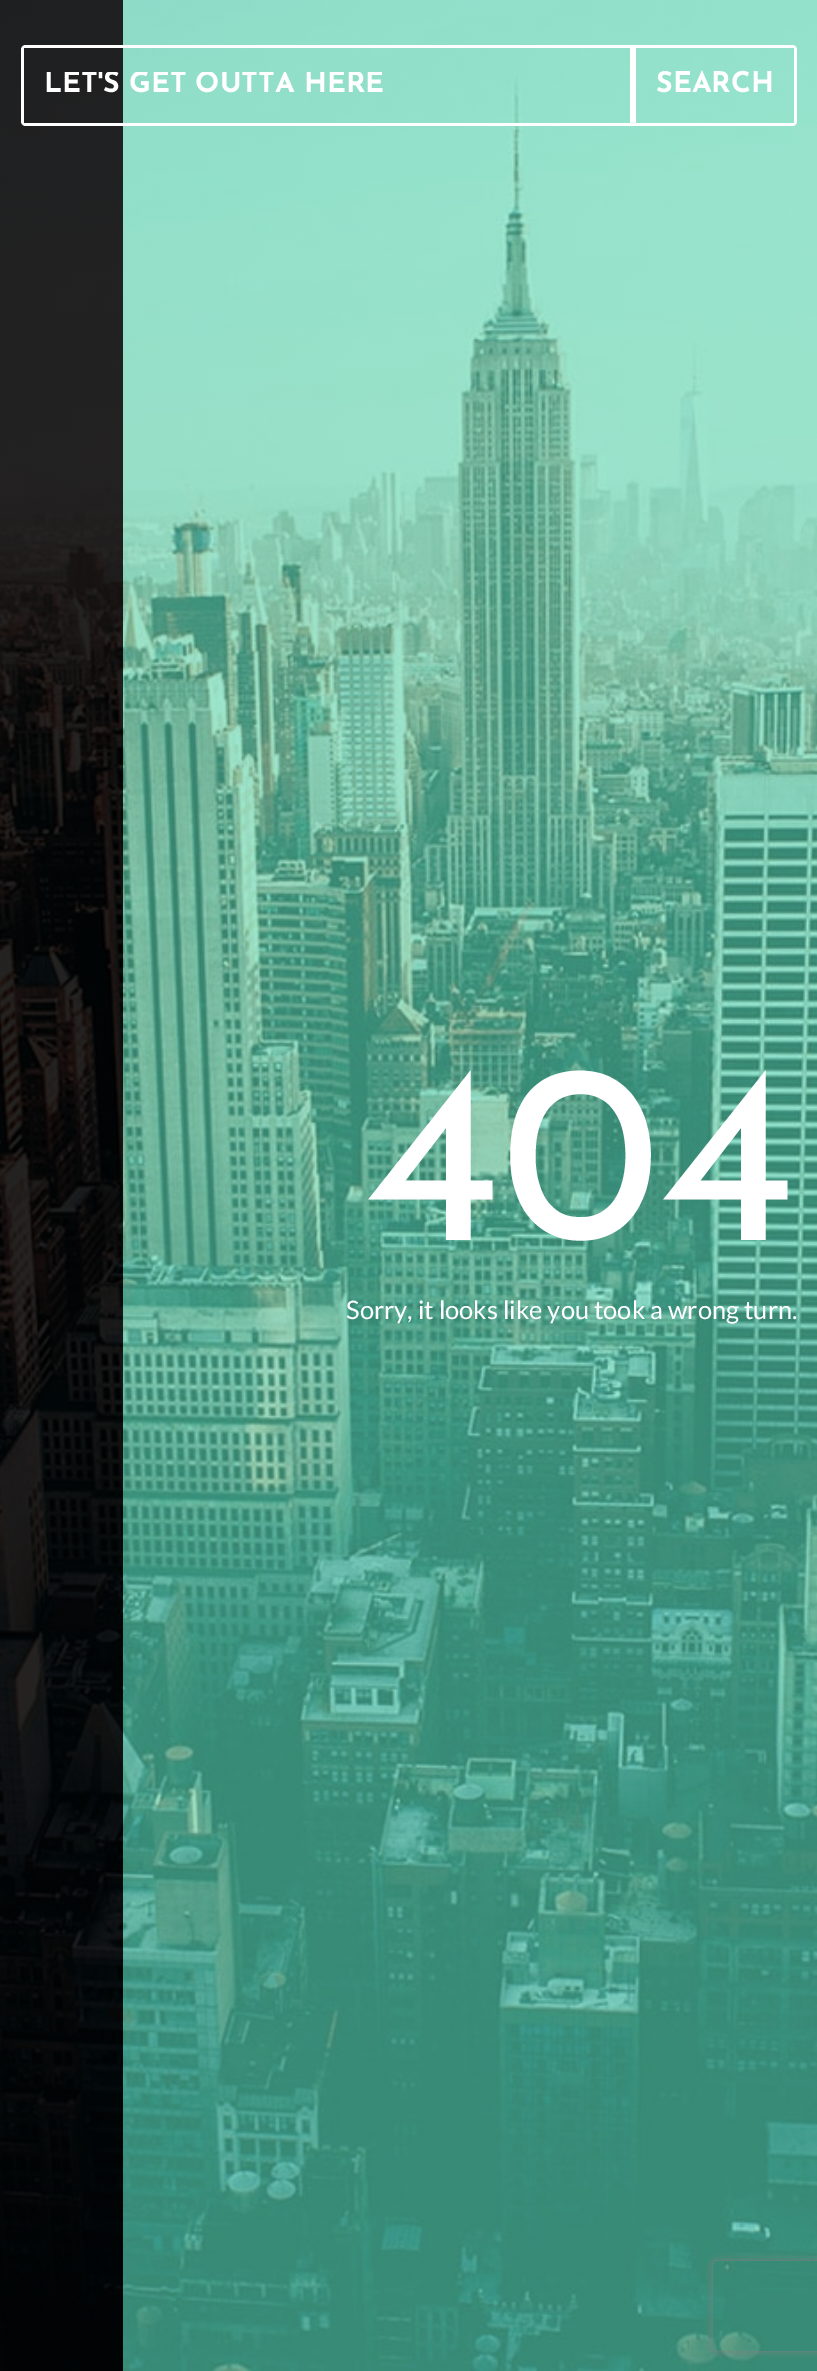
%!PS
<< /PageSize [817 2371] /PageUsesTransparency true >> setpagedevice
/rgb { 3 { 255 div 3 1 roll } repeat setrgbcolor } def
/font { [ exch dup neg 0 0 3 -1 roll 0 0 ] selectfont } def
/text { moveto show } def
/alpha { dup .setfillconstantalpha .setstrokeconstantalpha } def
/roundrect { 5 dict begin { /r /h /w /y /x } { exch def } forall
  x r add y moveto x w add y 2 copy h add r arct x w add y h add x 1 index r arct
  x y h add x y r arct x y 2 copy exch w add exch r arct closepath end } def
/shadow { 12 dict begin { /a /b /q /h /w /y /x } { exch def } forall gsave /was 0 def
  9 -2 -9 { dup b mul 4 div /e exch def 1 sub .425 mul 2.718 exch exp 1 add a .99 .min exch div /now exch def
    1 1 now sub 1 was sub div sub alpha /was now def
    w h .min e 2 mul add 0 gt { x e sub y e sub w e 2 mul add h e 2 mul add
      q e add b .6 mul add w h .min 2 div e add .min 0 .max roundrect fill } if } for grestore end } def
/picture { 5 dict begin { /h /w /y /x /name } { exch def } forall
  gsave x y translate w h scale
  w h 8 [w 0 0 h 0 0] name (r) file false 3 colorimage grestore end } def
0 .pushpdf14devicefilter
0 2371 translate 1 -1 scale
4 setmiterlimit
255 255 255 rgb
0 0 817 2371 rectfill
(img_01.rgb) 0 0 817 2371 picture
26 45 moveto -3 0 -5 2 -5 5 rcurveto 0 71 rlineto 0 3 2 5 5 5 rcurveto 607 0 rlineto 0 -81 rlineto closepath 24 48 moveto 0 75 rlineto 606 0 rlineto 0 -75 rlineto closepath eofill
633 45 moveto 0 81 rlineto 159 0 rlineto 3 0 5 -2 5 -5 rcurveto 0 -71 rlineto 0 -3 -2 -5 -5 -5 rcurveto closepath 636 48 moveto 0 75 rlineto 158 0 rlineto 0 -75 rlineto closepath eofill
gsave
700 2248 moveto 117 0 rlineto 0 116 rlineto -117 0 rlineto closepath 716 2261 moveto 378 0 rlineto 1.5 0 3 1.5 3 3 rcurveto 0 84 rlineto 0 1.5 -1.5 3 -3 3 rcurveto -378 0 rlineto -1.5 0 -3 -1.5 -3 -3 rcurveto 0 -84 rlineto 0 -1.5 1.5 -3 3 -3 rcurveto closepath eoclip newpath
128 128 128 rgb
713 2261 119 90 3 4 1 shadow
grestore
gsave
44 72 565 29 rectclip
/JosefinSans-Bold 28.5 font
(LET'S GET OUTTA HERE) 44 92 text
grestore
/JosefinSans-Bold 28.5 font
(SEARCH) 656 92 text
/JosefinSans-Regular 255 font
(404) 365 1240 text
/Lato-Regular 25.5 font
(Sorry, it looks like you took a wrong turn.) 346 1319 text
.poppdf14devicefilter showpage
